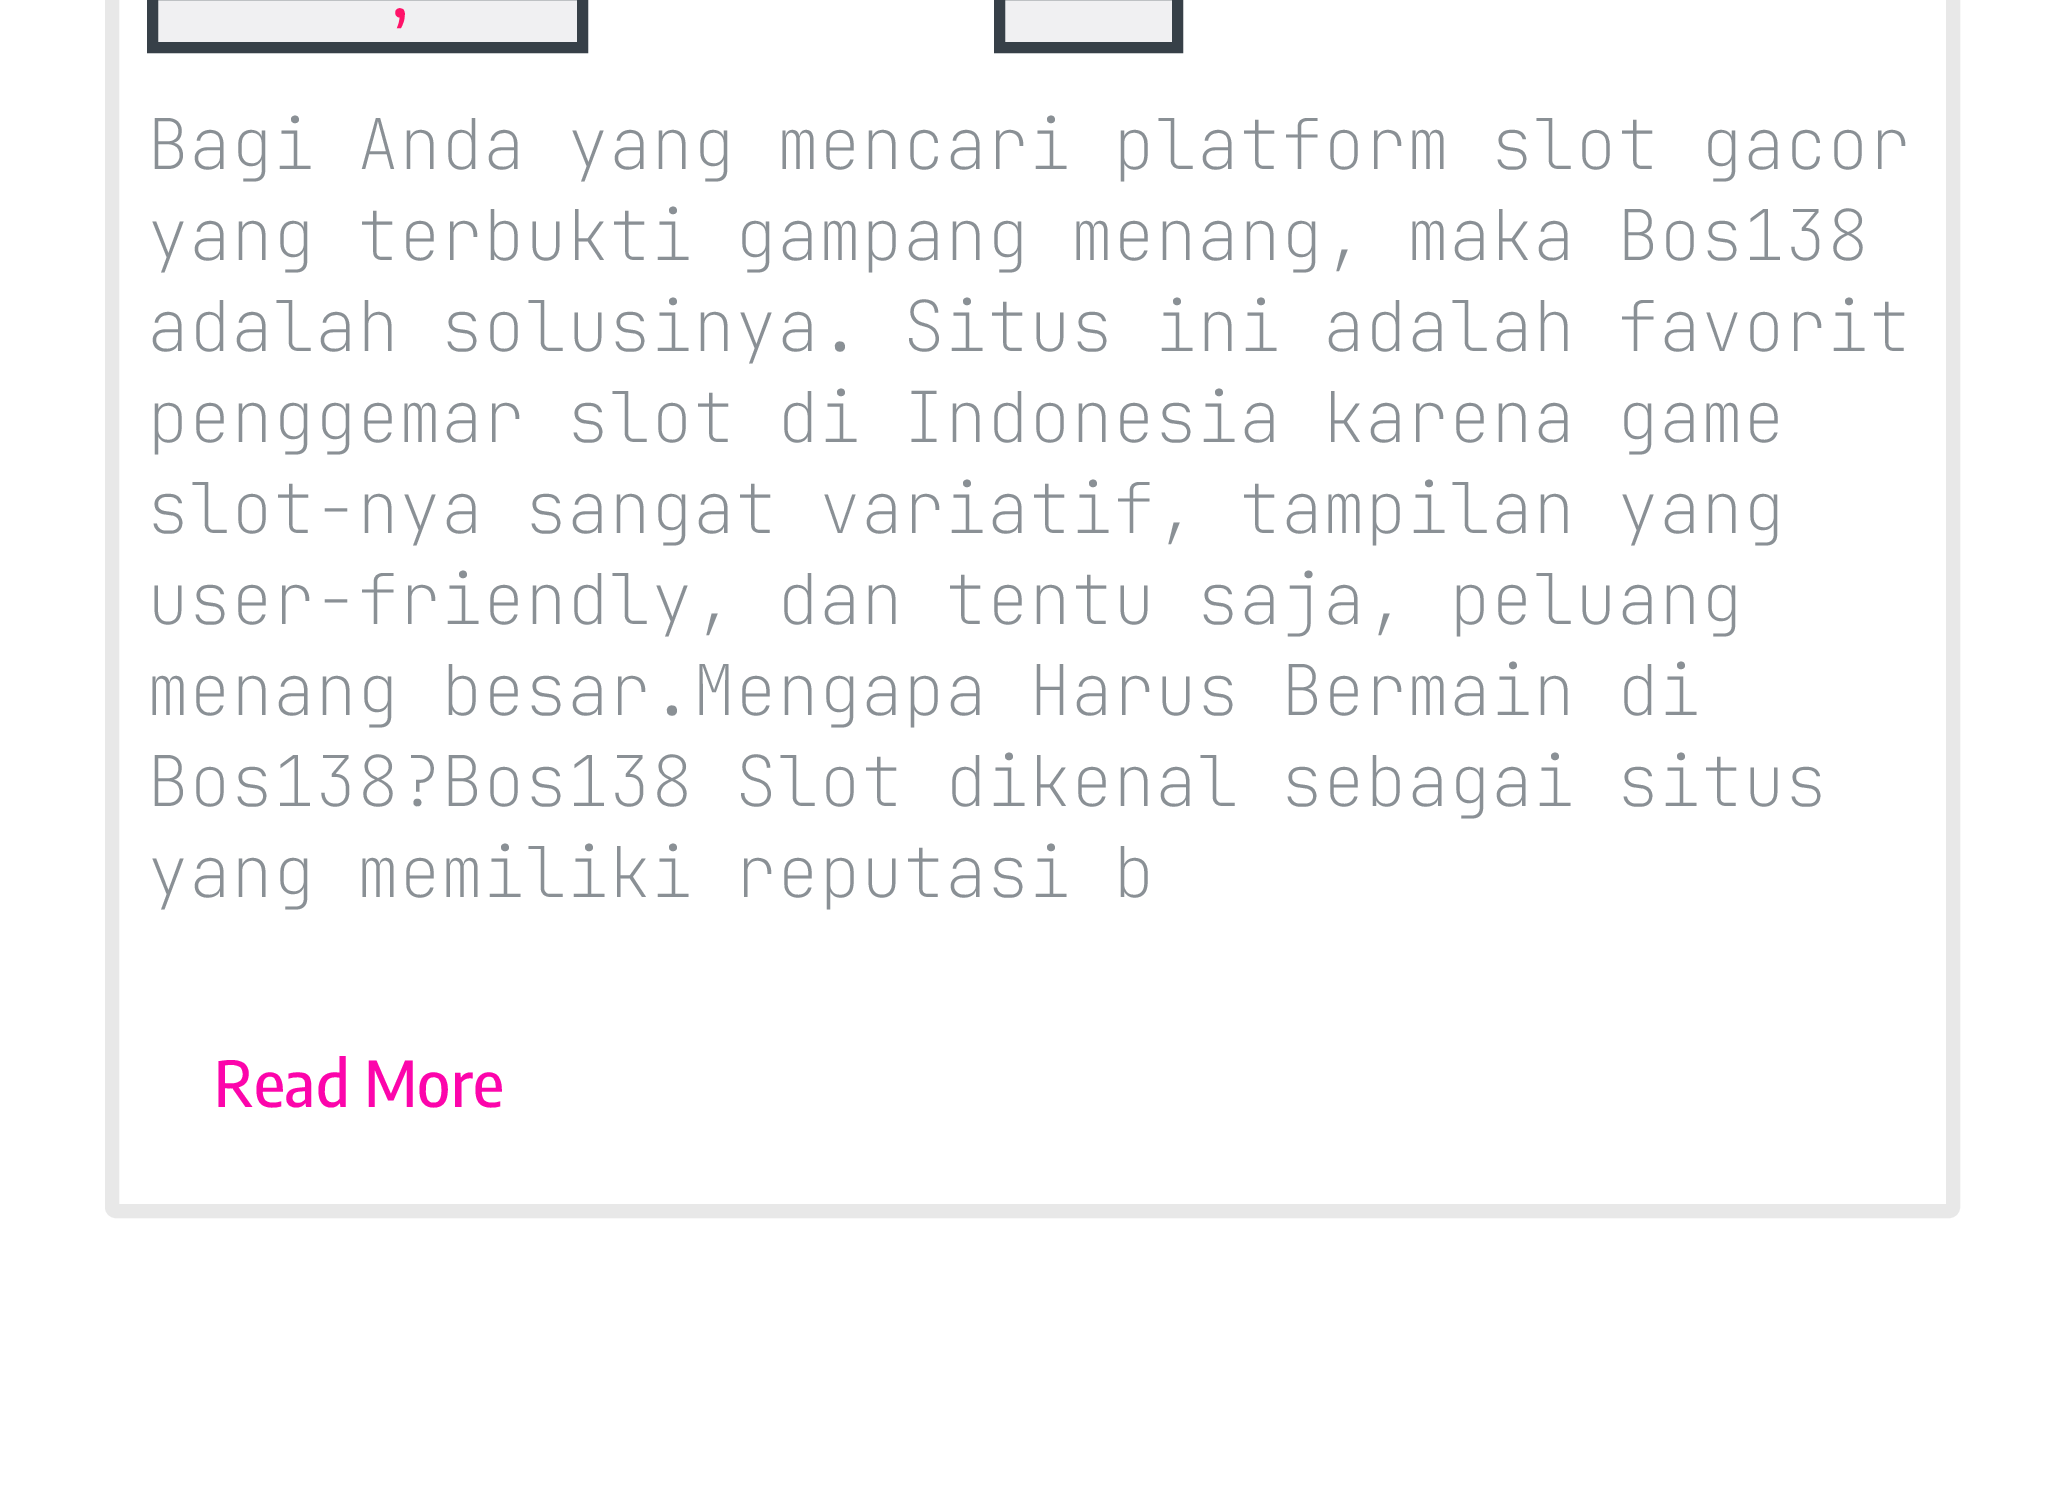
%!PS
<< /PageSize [2065 1488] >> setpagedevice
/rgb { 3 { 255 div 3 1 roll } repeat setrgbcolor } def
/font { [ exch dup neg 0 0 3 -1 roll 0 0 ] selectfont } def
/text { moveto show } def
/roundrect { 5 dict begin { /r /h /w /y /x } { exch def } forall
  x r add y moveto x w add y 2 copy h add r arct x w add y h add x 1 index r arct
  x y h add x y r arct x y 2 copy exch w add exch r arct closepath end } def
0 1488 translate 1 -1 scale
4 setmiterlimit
255 255 255 rgb
0 0 2065 1488 rectfill
232 232 232 rgb
14 setlinewidth
112 -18 1841 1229 4 roundrect stroke
240 240 242 rgb
152.5 -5.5 moveto 430 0 rlineto 0 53 rlineto -430 0 rlineto closepath gsave fill grestore
55 64 72 rgb
11 setlinewidth
stroke
240 240 242 rgb
999.5 -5.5 moveto 178 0 rlineto 0 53 rlineto -178 0 rlineto closepath gsave fill grestore
55 64 72 rgb
stroke
/EncodeSansSemiCondensed-Medium 70 font
255 19 105 rgb
(,) 392 17 text
/JetBrainsMono-Thin 70 font
138 144 149 rgb
(Bagi Anda yang mencari platform slot gacor) 147 169 text
(yang terbukti gampang menang, maka Bos138) 147 260 text
(adalah solusinya. Situs ini adalah favorit) 147 351 text
(penggemar slot di Indonesia karena game) 147 442 text
(slot-nya sangat variatif, tampilan yang) 147 533 text
(user-friendly, dan tentu saja, peluang) 147 624 text
(menang besar.Mengapa Harus Bermain di) 147 715 text
(Bos138?Bos138 Slot dikenal sebagai situs) 147 806 text
(yang memiliki reputasi b) 147 897 text
/EncodeSansSemiCondensed-Medium 63 font
252 5 171 rgb
(Read More) 214 1107 text
showpage
